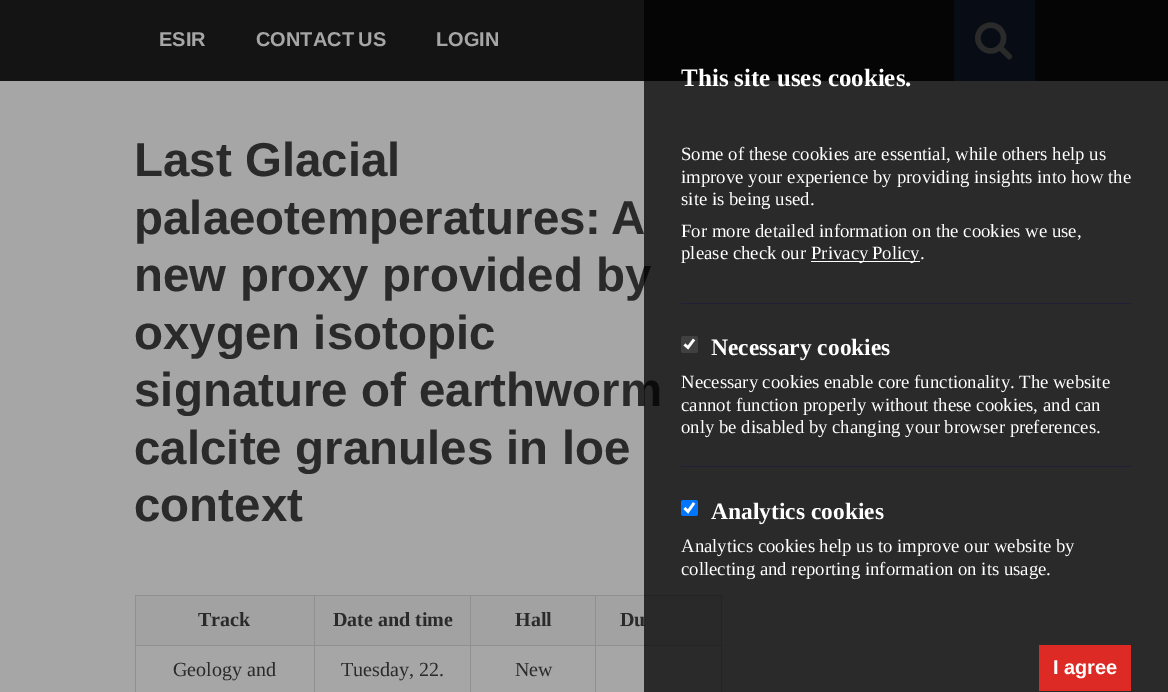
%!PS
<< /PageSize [1168 692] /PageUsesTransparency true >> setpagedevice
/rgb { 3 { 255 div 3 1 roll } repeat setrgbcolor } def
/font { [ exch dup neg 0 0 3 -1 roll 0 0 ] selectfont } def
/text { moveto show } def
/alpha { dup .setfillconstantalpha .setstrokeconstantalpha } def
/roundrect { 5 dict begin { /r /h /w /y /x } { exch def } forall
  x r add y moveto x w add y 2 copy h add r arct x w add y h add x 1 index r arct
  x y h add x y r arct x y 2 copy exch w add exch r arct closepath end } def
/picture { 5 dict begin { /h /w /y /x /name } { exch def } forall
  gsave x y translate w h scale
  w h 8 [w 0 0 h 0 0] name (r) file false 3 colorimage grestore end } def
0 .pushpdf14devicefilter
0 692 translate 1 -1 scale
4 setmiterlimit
166 166 166 rgb
0 0 1168 692 rectfill
20 20 21 rgb
0 0 1168 81 rectfill
28 49 82 rgb
954 0 81 81 rectfill
(img_01.rgb) 975 22 38 38 picture
144 144 144 rgb
135 595 588 1 rectfill
721 595 1 97 rectfill
135 595 1 97 rectfill
162 162 162 rgb
136 596 178 49 rectfill
315 596 155 49 rectfill
144 144 144 rgb
595 645 128 1 rectfill
595 645 1 47 rectfill
470 645 126 1 rectfill
470 645 1 47 rectfill
314 645 157 1 rectfill
314 645 1 47 rectfill
135 645 180 1 rectfill
314 595 1 51 rectfill
162 162 162 rgb
471 596 124 49 rectfill
144 144 144 rgb
470 595 1 51 rectfill
162 162 162 rgb
596 596 125 49 rectfill
144 144 144 rgb
595 595 1 51 rectfill
/LiberationSans-Bold 20 font
166 166 166 rgb
(ESIR) 159 46 text
256 46 moveto -1 0 32 (CONTACT US) widthshow
(LOGIN) 436 46 text
/LiberationSans-Bold 47.5 font
42 42 42 rgb
(Last Glacial) 134 176 text
134 234 moveto -3 0 32 (palaeotemperatures: A) widthshow
(new proxy provided by) 134 291 text
(oxygen isotopic) 134 349 text
(signature of earthworm) 134 406 text
(calcite granules in loe) 134 464 text
(context) 134 521 text
/LiberationSerif-Bold 20 font
(Track) 198 626 text
(Date and time) 333 626 text
(Hall) 515 626 text
(Du) 620 626 text
/LiberationSerif-Regular 20 font
(Geology and) 173 676 text
(Tuesday, 22.) 341 676 text
(New) 515 676 text
0.75 alpha
0 0 0 rgb
644 0 524 692 rectfill
/LiberationSerif-Bold 25 font
1 alpha
255 255 255 rgb
(This site uses cookies.) 681 86 text
/LiberationSerif-Regular 18.75 font
(Some of these cookies are essential, while others help us) 681 160 text
(improve your experience by providing insights into how the) 681 183 text
(site is being used.) 681 205 text
(For more detailed information on the cookies we use,) 681 237 text
(please check our) 681 259 text
811 261 109 1 rectfill
811 259 moveto -1 0 32 (Privacy Policy) widthshow
(.) 920 259 text
31 31 56 rgb
681 303 450 1 rectfill
64 64 64 rgb
681 336 17 17 2.5 roundrect fill
255 255 255 rgb
2.6 setlinewidth
684.5 344.5 moveto 3.5 3 rlineto 6 -8 rlineto stroke
/LiberationSerif-Bold 23.5 font
(Necessary cookies) 711 355 text
/LiberationSerif-Regular 18.75 font
681 388 moveto -0.25 0 32 (Necessary cookies enable core functionality. The website) widthshow
(cannot function properly without these cookies, and can) 681 411 text
(only be disabled by changing your browser preferences.) 681 433 text
31 31 56 rgb
681 466 450 1 rectfill
0 117 255 rgb
681 500 17 16 2.5 roundrect fill
255 255 255 rgb
684.5 508 moveto 3.5 3.5 rlineto 6 -8.5 rlineto stroke
/LiberationSerif-Bold 23.5 font
(Analytics cookies) 711 519 text
/LiberationSerif-Regular 18.75 font
(Analytics cookies help us to improve our website by) 681 552 text
(collecting and reporting information on its usage.) 681 575 text
221 42 37 rgb
1039 645 92 46 rectfill
/LiberationSans-Bold 20 font
255 255 255 rgb
(I agree) 1053 674 text
.poppdf14devicefilter showpage
